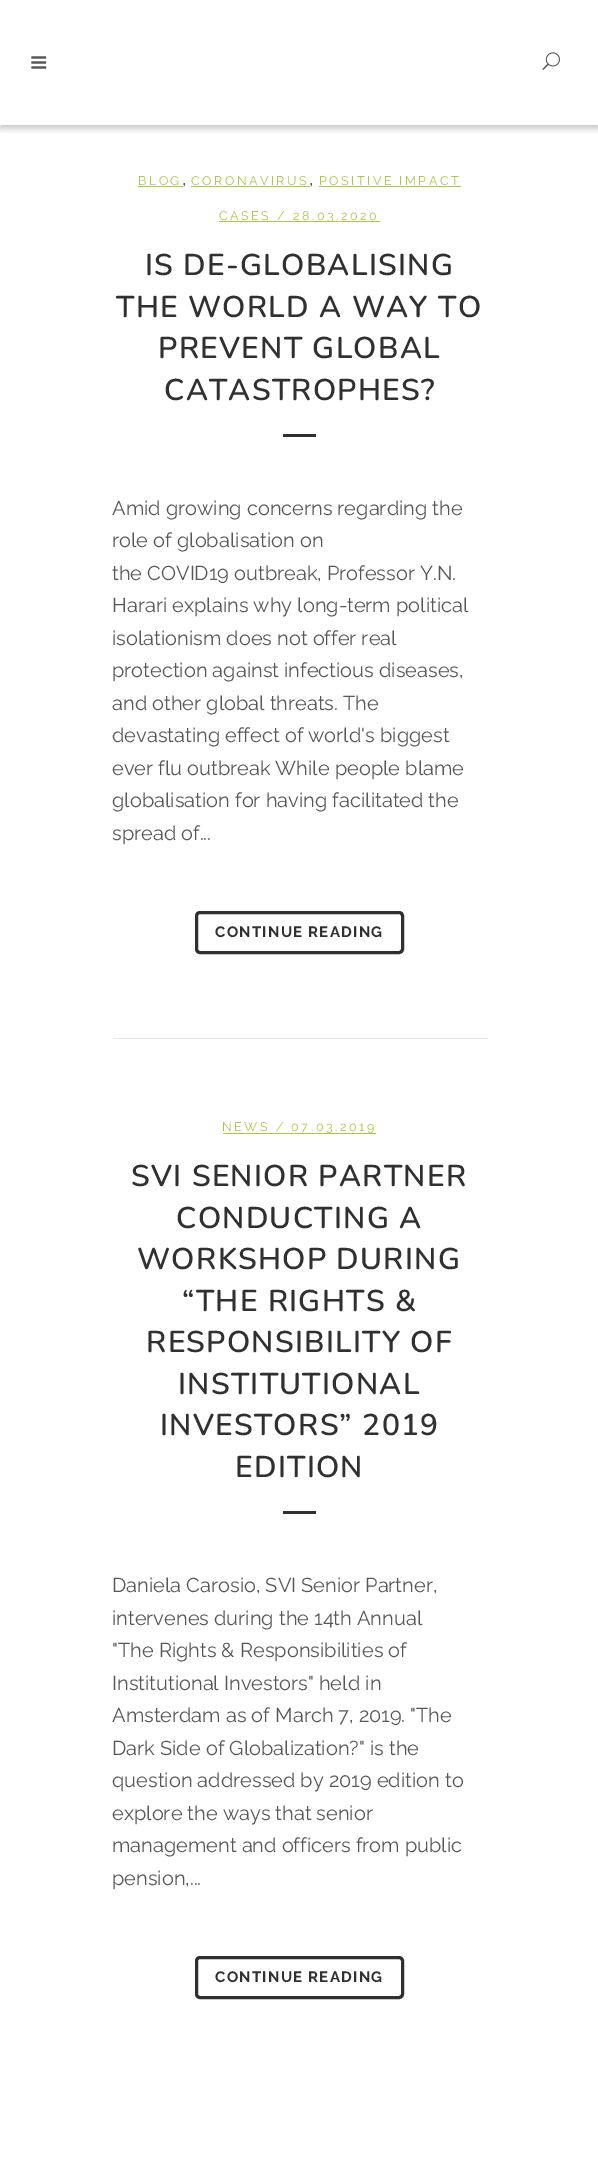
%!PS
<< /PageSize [598 2175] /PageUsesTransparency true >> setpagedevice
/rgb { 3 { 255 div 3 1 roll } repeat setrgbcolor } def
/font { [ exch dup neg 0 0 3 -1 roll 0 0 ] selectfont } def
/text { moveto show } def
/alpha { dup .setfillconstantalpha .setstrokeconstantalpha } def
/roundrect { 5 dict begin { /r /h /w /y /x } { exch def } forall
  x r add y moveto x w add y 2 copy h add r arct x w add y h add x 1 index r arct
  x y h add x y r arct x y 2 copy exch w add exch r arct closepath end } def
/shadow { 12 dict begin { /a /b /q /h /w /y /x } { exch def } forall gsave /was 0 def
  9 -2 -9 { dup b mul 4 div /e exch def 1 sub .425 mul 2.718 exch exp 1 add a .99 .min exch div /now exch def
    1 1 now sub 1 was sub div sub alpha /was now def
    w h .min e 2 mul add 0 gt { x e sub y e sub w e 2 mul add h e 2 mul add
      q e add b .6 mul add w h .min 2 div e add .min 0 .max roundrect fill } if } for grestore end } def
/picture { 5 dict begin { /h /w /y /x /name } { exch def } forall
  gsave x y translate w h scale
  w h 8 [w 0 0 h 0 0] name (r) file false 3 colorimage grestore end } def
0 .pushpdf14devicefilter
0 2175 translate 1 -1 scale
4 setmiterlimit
255 255 255 rgb
0 0 598 2175 rectfill
gsave
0 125 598 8 rectclip
0 0 0 rgb
0 4 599 125 0 3 0.2 shadow
grestore
(img_01.rgb) 31 56 16 13 picture
(img_02.rgb) 542 52 18 18 picture
229 229 229 rgb
113 1038 375 1 rectfill
168 201 68 rgb
138 186 45 1 rectfill
191 186 119 1 rectfill
319 186 142 1 rectfill
219 221 161 1 rectfill
48 48 48 rgb
283 434 33 3 rectfill
3 setlinewidth
196.5 912.5 206 40 3.5 roundrect stroke
168 201 68 rgb
223 1133 153 1 rectfill
48 48 48 rgb
283 1511 33 3 rectfill
196.5 1957.5 206 40 3.5 roundrect stroke
/Raleway-Thin 12.5 font
168 201 68 rgb
138 185 moveto 2.5 0 (BLOG) ashow
/Raleway-Thin 20 font
87 87 86 rgb
(,) 182 185 text
/Raleway-Thin 12.5 font
168 201 68 rgb
191 185 moveto 2.5 0 (CORONAVIRUS) ashow
/Raleway-Thin 20 font
87 87 86 rgb
(,) 309 185 text
/Raleway-Thin 12.5 font
168 201 68 rgb
319 185 moveto 2.5 0 (POSITIVE IMPACT) ashow
219 220 moveto 2.5 0 (CASES / 28.03.2020) ashow
/Nunito-SemiBold 30 font
48 48 48 rgb
145 275 moveto 1.25 0 (IS DE-GLOBALISING) ashow
116 317 moveto 1.25 0 (THE WORLD A WAY TO) ashow
158 358 moveto 1.25 0 (PREVENT GLOBAL) ashow
164 400 moveto 1.25 0 (CATASTROPHES?) ashow
/Raleway-Thin 20 font
87 87 86 rgb
(Amid growing concerns regarding the) 112 515 text
(role of globalisation on) 112 547 text
(the COVID19 outbreak, Professor Y.N.) 112 580 text
(Harari explains why long-term political) 112 612 text
(isolationism does not offer real) 112 645 text
(protection against infectious diseases,) 112 677 text
(and other global threats. The) 112 710 text
(devastating effect of world's biggest) 112 742 text
(ever flu outbreak While people blame) 112 775 text
(globalisation for having facilitated the) 112 807 text
(spread of...) 112 840 text
/Raleway-Bold 15 font
48 48 48 rgb
215 937 moveto 1.25 0 (CONTINUE READING) ashow
/Raleway-Thin 12.5 font
168 201 68 rgb
222 1131 moveto 2.5 0 (NEWS / 07.03.2019) ashow
/Nunito-SemiBold 30 font
48 48 48 rgb
131 1186 moveto 1.25 0 (SVI SENIOR PARTNER) ashow
176 1228 moveto 1.25 0 (CONDUCTING A) ashow
137 1269 moveto 1.25 0 (WORKSHOP DURING) ashow
182 1311 moveto 1.25 0 (“THE RIGHTS &) ashow
146 1352 moveto 1.25 0 (RESPONSIBILITY OF) ashow
178 1394 moveto 1.25 0 (INSTITUTIONAL) ashow
160 1435 moveto 1.25 0 (INVESTORS” 2019) ashow
235 1477 moveto 1.25 0 (EDITION) ashow
/Raleway-Thin 20 font
87 87 86 rgb
(Daniela Carosio, SVI Senior Partner,) 112 1592 text
(intervenes during the 14th Annual) 112 1625 text
("The Rights & Responsibilities of) 112 1657 text
(Institutional Investors" held in) 112 1690 text
(Amsterdam as of March 7, 2019. "The) 112 1722 text
(Dark Side of Globalization?" is the) 112 1755 text
(question addressed by 2019 edition to) 112 1787 text
(explore the ways that senior) 112 1820 text
(management and officers from public) 112 1852 text
(pension,...) 112 1885 text
/Raleway-Bold 15 font
48 48 48 rgb
215 1982 moveto 1.25 0 (CONTINUE READING) ashow
.poppdf14devicefilter showpage
